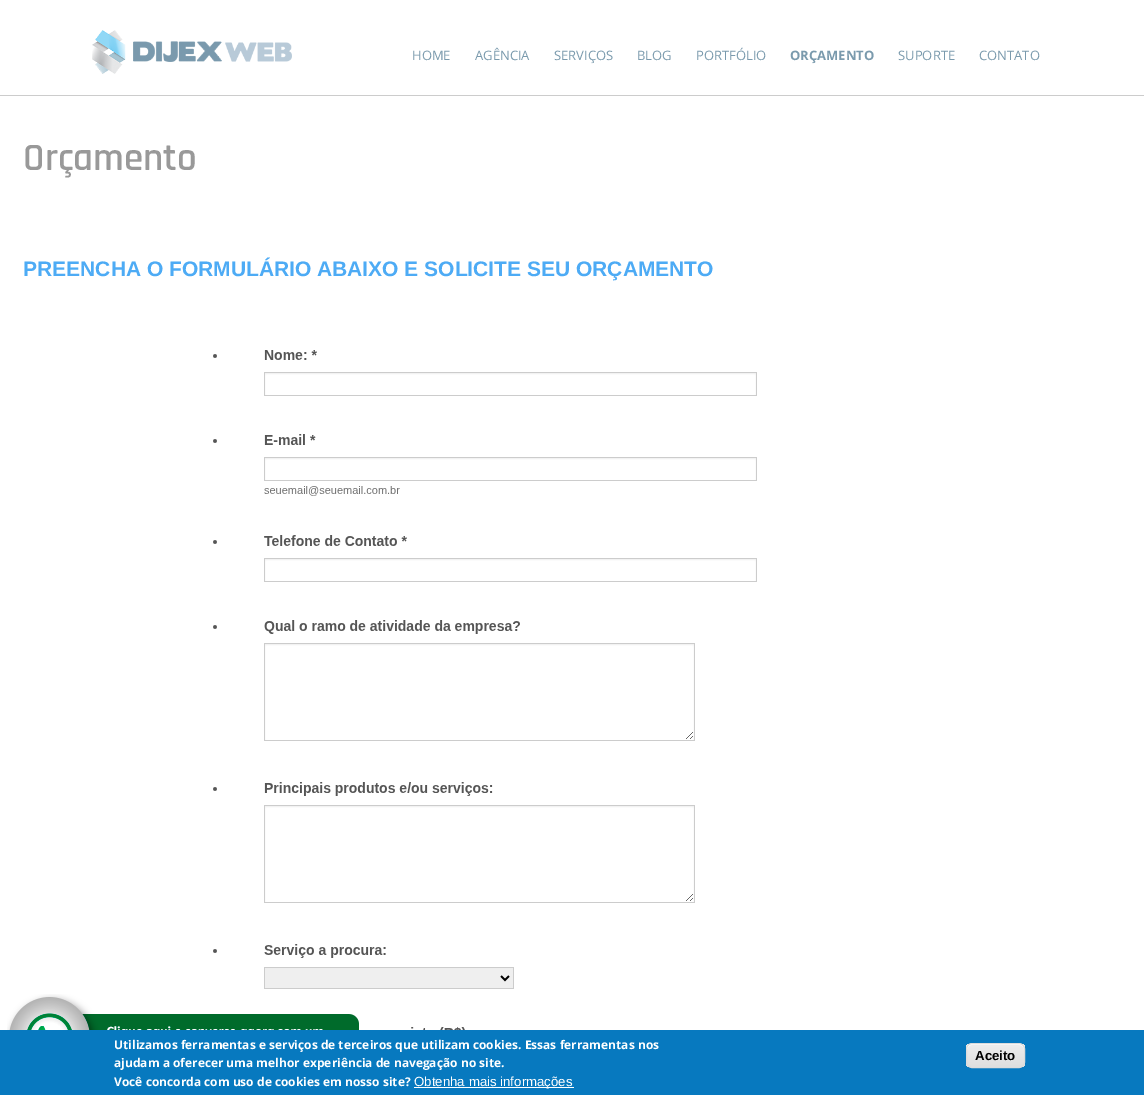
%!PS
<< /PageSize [1144 1095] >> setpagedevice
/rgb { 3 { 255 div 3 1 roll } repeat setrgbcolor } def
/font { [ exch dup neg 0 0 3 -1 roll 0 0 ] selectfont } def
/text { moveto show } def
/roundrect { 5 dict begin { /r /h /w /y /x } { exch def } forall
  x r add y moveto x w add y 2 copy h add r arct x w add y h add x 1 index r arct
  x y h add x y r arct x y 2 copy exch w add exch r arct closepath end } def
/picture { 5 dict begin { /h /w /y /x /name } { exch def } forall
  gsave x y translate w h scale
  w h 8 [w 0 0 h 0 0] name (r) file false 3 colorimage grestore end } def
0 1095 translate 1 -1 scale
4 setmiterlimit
255 255 255 rgb
0 0 1144 1095 rectfill
(img_01.rgb) 92 30 200 44 picture
204 204 204 rgb
0 95 1144 1 rectfill
(img_02.rgb) 213 350 544 680 picture
(img_03.rgb) 7 994 352 36 picture
7 121 191 rgb
0 1030 1144 65 rectfill
255 255 255 rgb
414 1087 160 1 rectfill
gsave
966 1043 59 25 6 roundrect clip newpath
gsave 966 1044 moveto 59 0 rlineto 0 23 rlineto -59 0 rlineto closepath clip newpath
<< /ShadingType 2 /ColorSpace /DeviceRGB /Coords [996 1044 996 1067] /Extend [true true] /Function << /FunctionType 3 /Domain [0 1] /Functions [<< /FunctionType 2 /Domain [0 1] /C0 [0.929 0.929 0.929] /C1 [0.929 0.929 0.929] /N 1 >> << /FunctionType 2 /Domain [0 1] /C0 [0.929 0.929 0.929] /C1 [0.875 0.875 0.875] /N 1 >>] /Bounds [0.05] /Encode [0 1 0 1] >> >> shfill grestore
grestore
972 1045 moveto 47 0 rlineto 3 0 5 2 5 5 rcurveto 0 -8 -7 -6 -13 -6 rcurveto -31 0 rlineto -6 0 -13 -2 -13 6 rcurveto 0 -3 2 -5 5 -5 rcurveto closepath fill
220 220 220 rgb
966.5 1043.5 58 24 5.5 roundrect stroke
/OpenSans-Regular 13 font
122 154 173 rgb
(HOME) 412 60 text
(AGÊNCIA) 475 60 text
(SERVIÇOS) 554 60 text
(BLOG) 637 60 text
(PORTFÓLIO) 696 60 text
/OpenSans-Bold 13 font
(ORÇAMENTO) 790 60 text
/OpenSans-Regular 13 font
(SUPORTE) 898 60 text
(CONTATO) 979 60 text
/Rajdhani-SemiBold 39 font
153 153 153 rgb
(Orçamento) 23 170 text
/LiberationSans-Bold 21 font
77 171 245 rgb
(PREENCHA O FORMULÁRIO ABAIXO E SOLICITE SEU ORÇAMENTO) 23 276 text
/OpenSans-Bold 12 font
255 255 255 rgb
(Utilizamos ferramentas e serviços de terceiros que utilizam cookies. Essas ferramentas nos) 114 1049 text
(ajudam a oferecer uma melhor experiência de navegação no site.) 114 1067 text
(Você concorda com uso de cookies em nosso site?) 114 1086 text
/LiberationSans-Regular 13.25 font
(Obtenha mais informações) 414 1086 text
/LiberationSans-Bold 13.25 font
0 0 0 rgb
(Aceito) 975 1060 text
showpage
